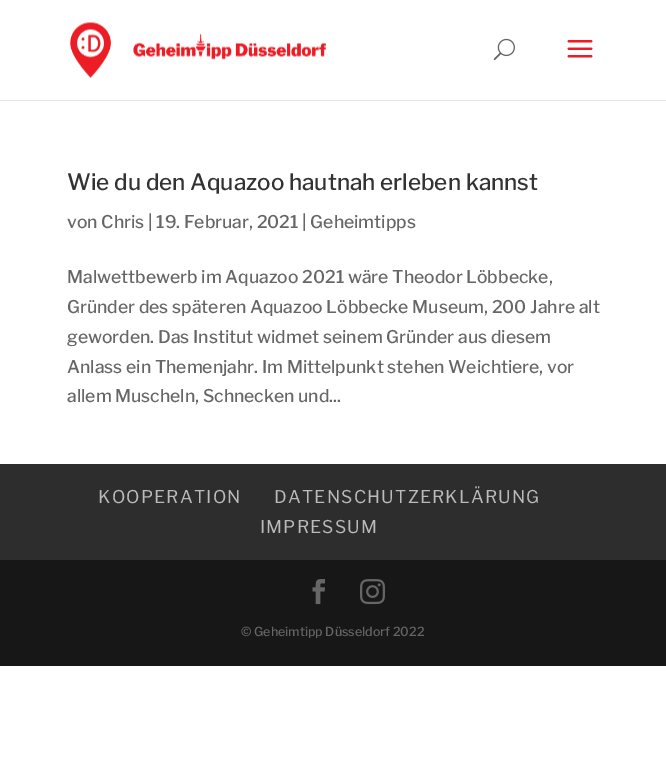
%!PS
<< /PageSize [666 778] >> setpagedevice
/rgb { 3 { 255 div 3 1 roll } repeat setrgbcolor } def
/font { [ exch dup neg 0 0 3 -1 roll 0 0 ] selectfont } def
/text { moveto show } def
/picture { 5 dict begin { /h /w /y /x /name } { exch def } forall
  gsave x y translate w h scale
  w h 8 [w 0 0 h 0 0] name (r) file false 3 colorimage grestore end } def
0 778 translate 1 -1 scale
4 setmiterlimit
255 255 255 rgb
0 0 666 778 rectfill
230 230 230 rgb
0 100 666 1 rectfill
(img_01.rgb) 70 22 256 56 picture
(img_02.rgb) 493 38 22 23 picture
(img_03.rgb) 567 40 26 18 picture
45 45 45 rgb
0 464 666 96 rectfill
23 23 23 rgb
0 560 666 106 rectfill
(img_04.rgb) 312 579 13 26 picture
(img_05.rgb) 360 579 25 26 picture
/LibreFranklin-Medium 22.5 font
51 51 51 rgb
(Wie du den Aquazoo hautnah erleben kannst) 67 190 text
/LibreFranklin-Medium 17.5 font
102 102 102 rgb
(von Chris | 19. Februar, 2021 | Geheimtipps) 67 228 text
(Malwettbewerb im Aquazoo 2021 wäre Theodor Löbbecke,) 67 283 text
(Gründer des späteren Aquazoo Löbbecke Museum, 200 Jahre alt) 67 313 text
(geworden. Das Institut widmet seinem Gründer aus diesem) 67 343 text
(Anlass ein Themenjahr. Im Mittelpunkt stehen Weichtiere, vor) 67 373 text
(allem Muscheln, Schnecken und...) 67 402 text
/LibreFranklin-Regular 17.5 font
187 187 187 rgb
98 503 moveto 1.25 0 (KOOPERATION) ashow
274 503 moveto 1.25 0 (DATENSCHUTZERKLÄRUNG) ashow
260 533 moveto 1.25 0 (IMPRESSUM) ashow
/LibreFranklin-Medium 12.5 font
102 102 102 rgb
(© Geheimtipp Düsseldorf 2022) 241 636 text
showpage
